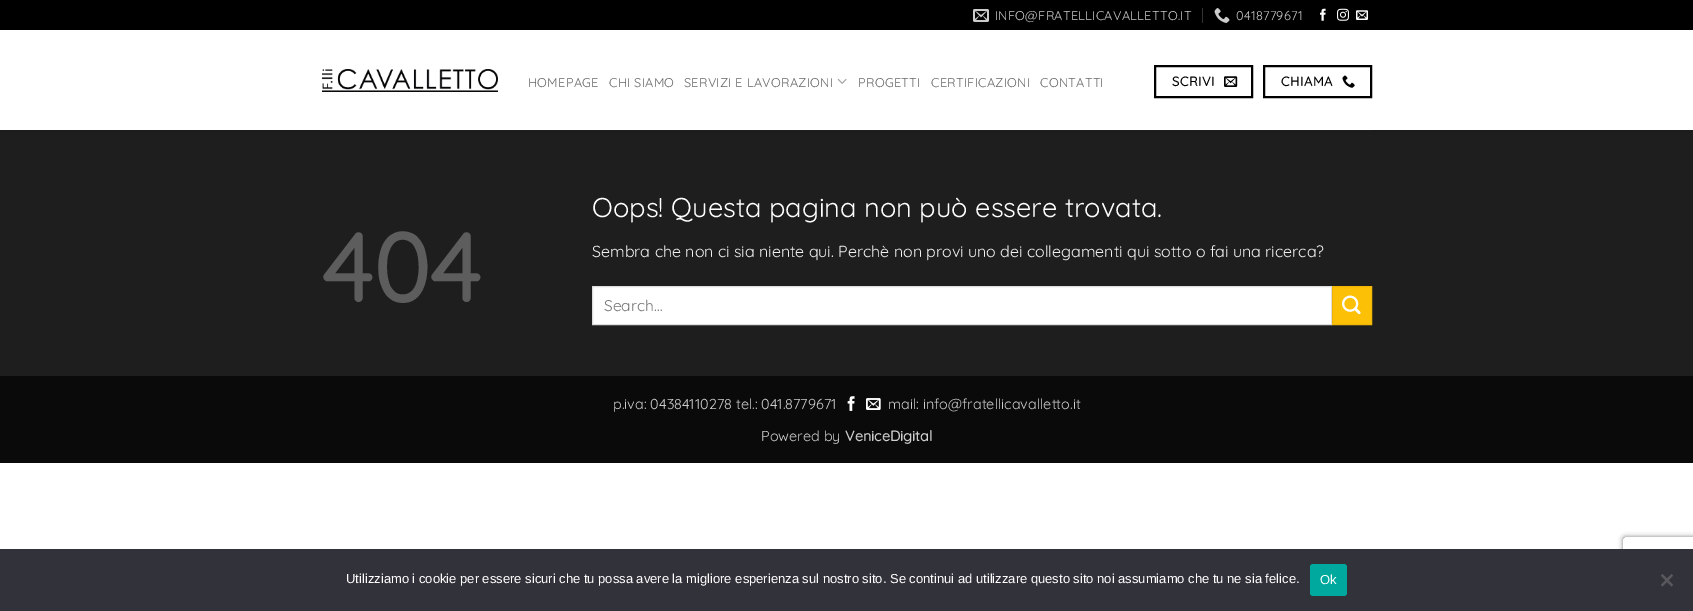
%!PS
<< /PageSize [1693 611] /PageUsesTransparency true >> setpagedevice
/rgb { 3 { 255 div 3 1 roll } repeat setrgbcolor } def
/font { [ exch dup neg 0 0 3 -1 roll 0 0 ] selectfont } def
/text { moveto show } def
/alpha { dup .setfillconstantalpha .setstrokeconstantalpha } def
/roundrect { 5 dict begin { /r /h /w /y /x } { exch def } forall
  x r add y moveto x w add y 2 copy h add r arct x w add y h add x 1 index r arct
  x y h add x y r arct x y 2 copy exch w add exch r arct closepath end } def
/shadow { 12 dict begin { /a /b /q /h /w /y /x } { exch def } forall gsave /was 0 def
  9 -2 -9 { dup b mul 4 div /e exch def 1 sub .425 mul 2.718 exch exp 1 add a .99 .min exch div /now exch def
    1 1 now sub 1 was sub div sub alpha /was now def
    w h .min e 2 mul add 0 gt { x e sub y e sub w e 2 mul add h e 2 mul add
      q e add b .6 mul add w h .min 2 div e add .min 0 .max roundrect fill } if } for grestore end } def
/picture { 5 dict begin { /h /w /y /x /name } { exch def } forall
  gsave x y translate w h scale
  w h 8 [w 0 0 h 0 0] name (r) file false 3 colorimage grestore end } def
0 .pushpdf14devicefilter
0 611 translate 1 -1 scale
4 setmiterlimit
255 255 255 rgb
0 0 1693 611 rectfill
30 30 30 rgb
0 130 1693 246 rectfill
0 0 0 rgb
1 1 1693 130 0 5 0.15 shadow
0 0 1693 30 rectfill
(img_01.rgb) 973 9 16 13 picture
51 51 51 rgb
1202 8 1 15 rectfill
(img_02.rgb) 1214 8 16 15 picture
(img_03.rgb) 1320 8 6 13 picture
(img_04.rgb) 1337 8 12 13 picture
(img_05.rgb) 1356 10 12 10 picture
255 255 255 rgb
0 30 1693 100 rectfill
(img_06.rgb) 322 69 176 23 picture
(img_07.rgb) 837 78 10 6 picture
0 0 0 rgb
2 setlinewidth
1155 66 97 31 rectstroke
(img_08.rgb) 1224 76 14 11 picture
1264 66 107 31 rectstroke
(img_09.rgb) 1342 75 13 13 picture
32 32 32 rgb
322 130 1050 1 rectfill
255 255 255 rgb
592.5 286.5 moveto 739 0 rlineto 0 38 rlineto -739 0 rlineto closepath gsave fill grestore
221 221 221 rgb
1 setlinewidth
stroke
252 192 7 rgb
1332.5 286.5 moveto 39 0 rlineto 0 38 rlineto -39 0 rlineto closepath gsave fill grestore
239 182 7 rgb
stroke
(img_10.rgb) 1342 295 19 20 picture
10 10 10 rgb
0 376 1693 87 rectfill
(img_11.rgb) 847 396 8 15 picture
(img_12.rgb) 866 398 15 12 picture
gsave
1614 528 moveto 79 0 rlineto 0 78 rlineto -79 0 rlineto closepath 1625 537 moveto 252 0 rlineto 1 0 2 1 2 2 rcurveto 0 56 rlineto 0 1 -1 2 -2 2 rcurveto -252 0 rlineto -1 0 -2 -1 -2 -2 rcurveto 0 -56 rlineto 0 -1 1 -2 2 -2 rcurveto closepath eoclip newpath
128 128 128 rgb
1623 537 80 60 2 2.5 1 shadow
grestore
50 50 58 rgb
0 549 1693 62 rectfill
0 169 157 rgb
1310 564 37 32 3 roundrect fill
89 89 93 rgb
1671.5 574 moveto 1.5 1.5 rlineto -10.5 11 rlineto -1.5 -1.5 rlineto closepath fill
1661 575.5 moveto 1.5 -1.5 rlineto 10.5 11 rlineto -1.5 1.5 rlineto closepath fill
/Quicksand-Light 12.75 font
206 206 206 rgb
995 20 moveto 0.25 0 (INFO@FRATELLICAVALLETTO.IT) ashow
1236 20 moveto 0.25 0 (0418779671) ashow
101 101 101 rgb
528 87 moveto 0.25 0 (HOMEPAGE) ashow
609 87 moveto 0.25 0 (CHI SIAMO) ashow
684 87 moveto 0.25 0 (SERVIZI E LAVORAZIONI) ashow
858 87 moveto 0.25 0 (PROGETTI) ashow
931 87 moveto 0.25 0 (CERTIFICAZIONI) ashow
1040 87 moveto 0.25 0 (CONTATTI) ashow
/Quicksand-Bold 13 font
0 0 0 rgb
1172 86 moveto 0.5 0 (SCRIVI) ashow
1281 86 moveto 0.5 0 (CHIAMA) ashow
/Quicksand-Bold 96 font
93 93 93 rgb
(404) 322 302 text
/Quicksand-Light 27.2 font
255 255 255 rgb
(Oops! Questa pagina non può essere trovata.) 592 217 text
/Quicksand-Light 16 font
241 241 241 rgb
(Sembra che non ci sia niente qui. Perchè non provi uno dei collegamenti qui sotto o fai una ricerca?) 592 257 text
/Quicksand-Light 15.5 font
117 117 117 rgb
(Search…) 604 311 text
/Quicksand-Light 14.4 font
206 206 206 rgb
(p.iva: 04384110278 tel.: 041.8779671) 613 409 text
(mail: info@fratellicavalletto.it) 888 409 text
(Powered by) 761 441 text
/Quicksand-Bold 14.4 font
(VeniceDigital) 845 441 text
/LiberationSans-Regular 13 font
255 255 255 rgb
(Utilizziamo i cookie per essere sicuri che tu possa avere la migliore esperienza sul nostro sito. Se continui ad utilizzare questo sito noi assumiamo che tu ne sia felice.) 346 583 text
(Ok) 1320 584 text
.poppdf14devicefilter showpage
